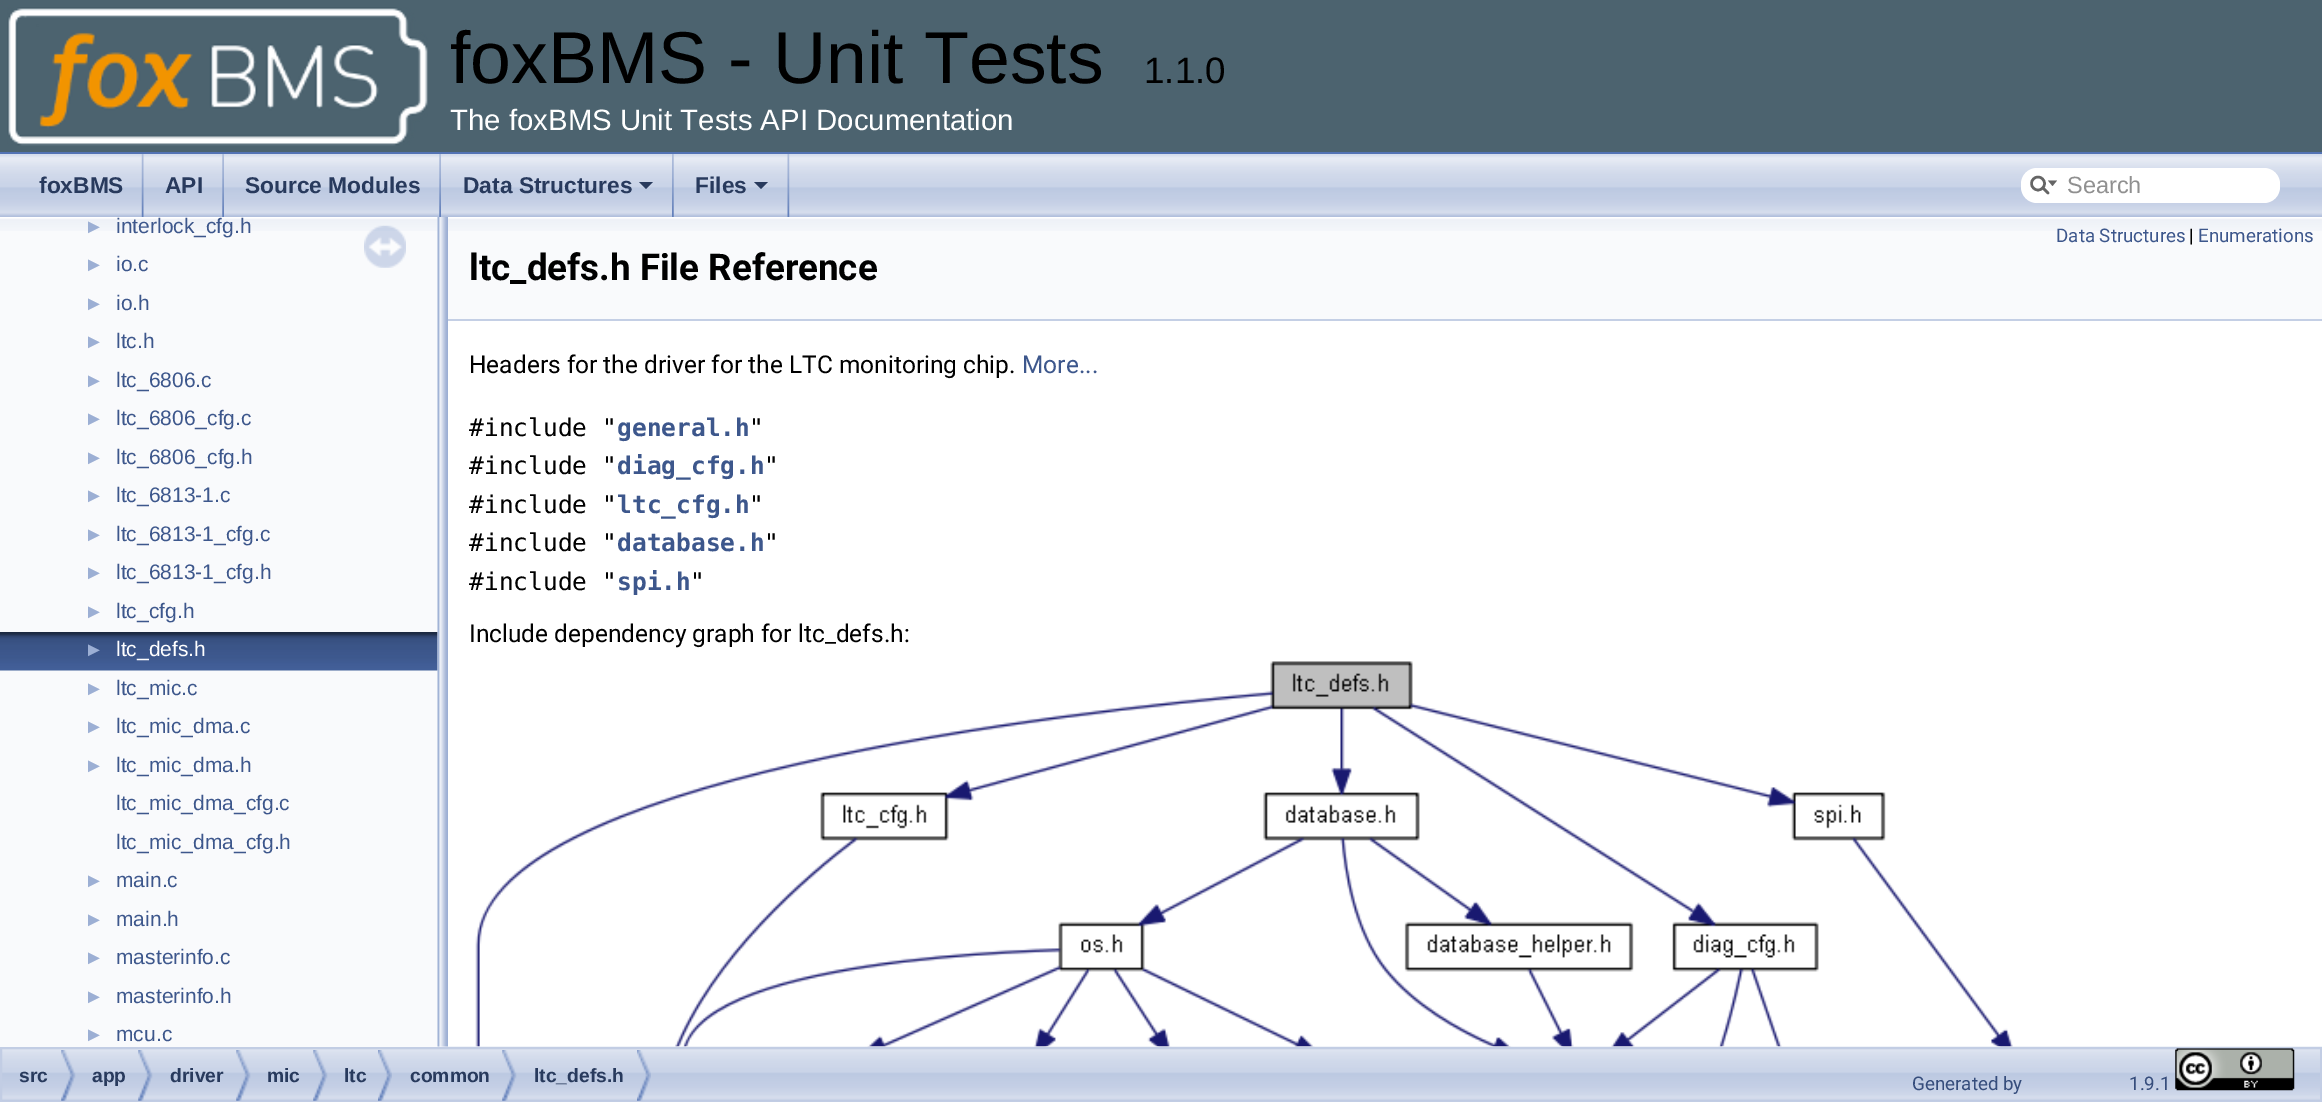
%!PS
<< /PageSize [2322 1102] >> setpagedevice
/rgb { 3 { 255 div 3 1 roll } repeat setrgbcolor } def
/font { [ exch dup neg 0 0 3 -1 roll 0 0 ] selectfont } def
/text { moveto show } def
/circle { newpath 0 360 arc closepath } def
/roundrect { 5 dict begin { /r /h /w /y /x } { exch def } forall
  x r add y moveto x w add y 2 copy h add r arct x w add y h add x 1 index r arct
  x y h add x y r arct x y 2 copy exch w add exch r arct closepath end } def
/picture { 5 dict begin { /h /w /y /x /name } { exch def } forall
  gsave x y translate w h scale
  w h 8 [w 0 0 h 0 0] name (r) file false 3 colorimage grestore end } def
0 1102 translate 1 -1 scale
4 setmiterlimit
255 255 255 rgb
0 0 2322 1102 rectfill
76 99 111 rgb
0 0 2322 152 rectfill
83 115 180 rgb
0 152 2322 2 rectfill
(img_01.rgb) 7 7 421 139 picture
(img_02.rgb) 0 154 2322 63 picture
(img_03.rgb) 141 154 3 63 picture
(img_04.rgb) 222 154 2 63 picture
(img_04.rgb) 439 154 2 63 picture
(img_05.rgb) 672 154 2 63 picture
40 58 93 rgb
639 182 moveto 14 0 rlineto -7 7 rlineto closepath fill
(img_06.rgb) 787 154 3 63 picture
754 182 moveto 14 0 rlineto -7 7 rlineto closepath fill
255 255 255 rgb
2021 168 259 35 16 roundrect fill
101 101 101 rgb
2.5 setlinewidth
2038 183.5 6.5 circle stroke
2048 180.5 moveto 4.5 5.5 rlineto 4.5 -5.5 rlineto closepath fill
1 setlinecap
2043 188 moveto 5 5 rlineto stroke
(img_12.rgb) 475 661 1538 386 picture
(img_13.rgb) 2 1046 2320 55 picture
249 250 252 rgb
0 217 438 830 rectfill
(img_07.rgb) 0 217 438 14 picture
(img_08.rgb) 0 632 438 39 picture
(img_09.rgb) 364 225 42 43 picture
(img_10.rgb) 437 217 11 830 picture
448 231 1874 88 rectfill
(img_11.rgb) 448 217 1874 14 picture
196 207 229 rgb
448 319 1874 2 rectfill
194 205 228 rgb
2 setlinewidth
0 setlinecap
1 1048 2320 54 rectstroke
(img_14.rgb) 61 1050 15 51 picture
(img_14.rgb) 138 1050 15 51 picture
(img_14.rgb) 236 1050 15 51 picture
(img_14.rgb) 313 1050 15 51 picture
(img_15.rgb) 378 1050 14 51 picture
(img_14.rgb) 502 1050 15 51 picture
(img_15.rgb) 637 1050 14 51 picture
(img_16.rgb) 2175 1048 120 43 picture
/LiberationSans-Regular 73.5 font
0 0 0 rgb
(foxBMS - Unit Tests) 450 83 text
/LiberationSans-Regular 36.75 font
(1.1.0) 1144 83 text
/LiberationSans-Regular 29.4 font
255 255 255 rgb
(The foxBMS Unit Tests API Documentation) 450 130 text
/LiberationSans-Bold 22.75 font
40 58 93 rgb
(foxBMS) 39 193 text
(API) 165 193 text
(Source Modules) 245 193 text
(Data Structures) 463 193 text
(Files) 695 193 text
/LiberationSans-Regular 23.5 font
144 144 144 rgb
(Search) 2067 193 text
/LiberationSans-Regular 20 font
156 175 212 rgb
(►) 84 233 text
/LiberationSans-Regular 21 font
61 87 140 rgb
(interlock_cfg.h) 116 233 text
/LiberationSans-Regular 20 font
156 175 212 rgb
(►) 84 271 text
/LiberationSans-Regular 21 font
61 87 140 rgb
(io.c) 116 271 text
/LiberationSans-Regular 20 font
156 175 212 rgb
(►) 84 310 text
/LiberationSans-Regular 21 font
61 87 140 rgb
(io.h) 116 310 text
/LiberationSans-Regular 20 font
156 175 212 rgb
(►) 84 348 text
/LiberationSans-Regular 21 font
61 87 140 rgb
(ltc.h) 116 348 text
/LiberationSans-Regular 20 font
156 175 212 rgb
(►) 84 387 text
/LiberationSans-Regular 21 font
61 87 140 rgb
(ltc_6806.c) 116 387 text
/LiberationSans-Regular 20 font
156 175 212 rgb
(►) 84 425 text
/LiberationSans-Regular 21 font
61 87 140 rgb
(ltc_6806_cfg.c) 116 425 text
/LiberationSans-Regular 20 font
156 175 212 rgb
(►) 84 464 text
/LiberationSans-Regular 21 font
61 87 140 rgb
(ltc_6806_cfg.h) 116 464 text
/LiberationSans-Regular 20 font
156 175 212 rgb
(►) 84 502 text
/LiberationSans-Regular 21 font
61 87 140 rgb
(ltc_6813-1.c) 116 502 text
/LiberationSans-Regular 20 font
156 175 212 rgb
(►) 84 541 text
/LiberationSans-Regular 21 font
61 87 140 rgb
(ltc_6813-1_cfg.c) 116 541 text
/LiberationSans-Regular 20 font
156 175 212 rgb
(►) 84 579 text
/LiberationSans-Regular 21 font
61 87 140 rgb
(ltc_6813-1_cfg.h) 116 579 text
/LiberationSans-Regular 20 font
156 175 212 rgb
(►) 84 618 text
/LiberationSans-Regular 21 font
61 87 140 rgb
(ltc_cfg.h) 116 618 text
/LiberationSans-Regular 20 font
156 175 212 rgb
(►) 84 656 text
/LiberationSans-Regular 21 font
255 255 255 rgb
(ltc_defs.h) 116 656 text
/LiberationSans-Regular 20 font
156 175 212 rgb
(►) 84 695 text
/LiberationSans-Regular 21 font
61 87 140 rgb
(ltc_mic.c) 116 695 text
/LiberationSans-Regular 20 font
156 175 212 rgb
(►) 84 733 text
/LiberationSans-Regular 21 font
61 87 140 rgb
(ltc_mic_dma.c) 116 733 text
/LiberationSans-Regular 20 font
156 175 212 rgb
(►) 84 772 text
/LiberationSans-Regular 21 font
61 87 140 rgb
(ltc_mic_dma.h) 116 772 text
(ltc_mic_dma_cfg.c) 116 810 text
(ltc_mic_dma_cfg.h) 116 849 text
/LiberationSans-Regular 20 font
156 175 212 rgb
(►) 84 887 text
/LiberationSans-Regular 21 font
61 87 140 rgb
(main.c) 116 887 text
/LiberationSans-Regular 20 font
156 175 212 rgb
(►) 84 926 text
/LiberationSans-Regular 21 font
61 87 140 rgb
(main.h) 116 926 text
/LiberationSans-Regular 20 font
156 175 212 rgb
(►) 84 964 text
/LiberationSans-Regular 21 font
61 87 140 rgb
(masterinfo.c) 116 964 text
/LiberationSans-Regular 20 font
156 175 212 rgb
(►) 84 1003 text
/LiberationSans-Regular 21 font
61 87 140 rgb
(masterinfo.h) 116 1003 text
/LiberationSans-Regular 20 font
156 175 212 rgb
(►) 84 1041 text
/LiberationSans-Regular 21 font
61 87 140 rgb
(mcu.c) 116 1041 text
/Roboto-Regular 18.75 font
(Data Structures) 2056 242 text
0 0 0 rgb
(|) 2189 242 text
61 87 140 rgb
(Enumerations) 2198 242 text
/Roboto-Bold 36.75 font
0 0 0 rgb
(ltc_defs.h File Reference) 469 280 text
/Roboto-Regular 24.5 font
(Headers for the driver for the LTC monitoring chip.) 469 373 text
61 87 140 rgb
(More...) 1022 373 text
/DejaVuSansMono-Regular 24.5 font
0 0 0 rgb
(#include ") 469 436 text
/DejaVuSansMono-Bold 24.5 font
61 87 140 rgb
(general.h) 617 436 text
/DejaVuSansMono-Regular 24.5 font
0 0 0 rgb
(") 749 436 text
(#include ") 469 474 text
/DejaVuSansMono-Bold 24.5 font
61 87 140 rgb
(diag_cfg.h) 617 474 text
/DejaVuSansMono-Regular 24.5 font
0 0 0 rgb
(") 764 474 text
(#include ") 469 513 text
/DejaVuSansMono-Bold 24.5 font
61 87 140 rgb
(ltc_cfg.h) 617 513 text
/DejaVuSansMono-Regular 24.5 font
0 0 0 rgb
(") 749 513 text
(#include ") 469 551 text
/DejaVuSansMono-Bold 24.5 font
61 87 140 rgb
(database.h) 617 551 text
/DejaVuSansMono-Regular 24.5 font
0 0 0 rgb
(") 764 551 text
(#include ") 469 590 text
/DejaVuSansMono-Bold 24.5 font
61 87 140 rgb
(spi.h) 617 590 text
/DejaVuSansMono-Regular 24.5 font
0 0 0 rgb
(") 690 590 text
/Roboto-Regular 24.5 font
(Include dependency graph for ltc_defs.h:) 469 642 text
/LiberationSans-Bold 19.25 font
40 58 93 rgb
(src) 19 1082 text
(app) 92 1082 text
(driver) 170 1082 text
(mic) 267 1082 text
(ltc) 344 1082 text
(common) 410 1082 text
(ltc_defs.h) 534 1082 text
/Roboto-Regular 18.75 font
54 77 124 rgb
(Generated by) 1912 1090 text
(1.9.1) 2129 1090 text
showpage
